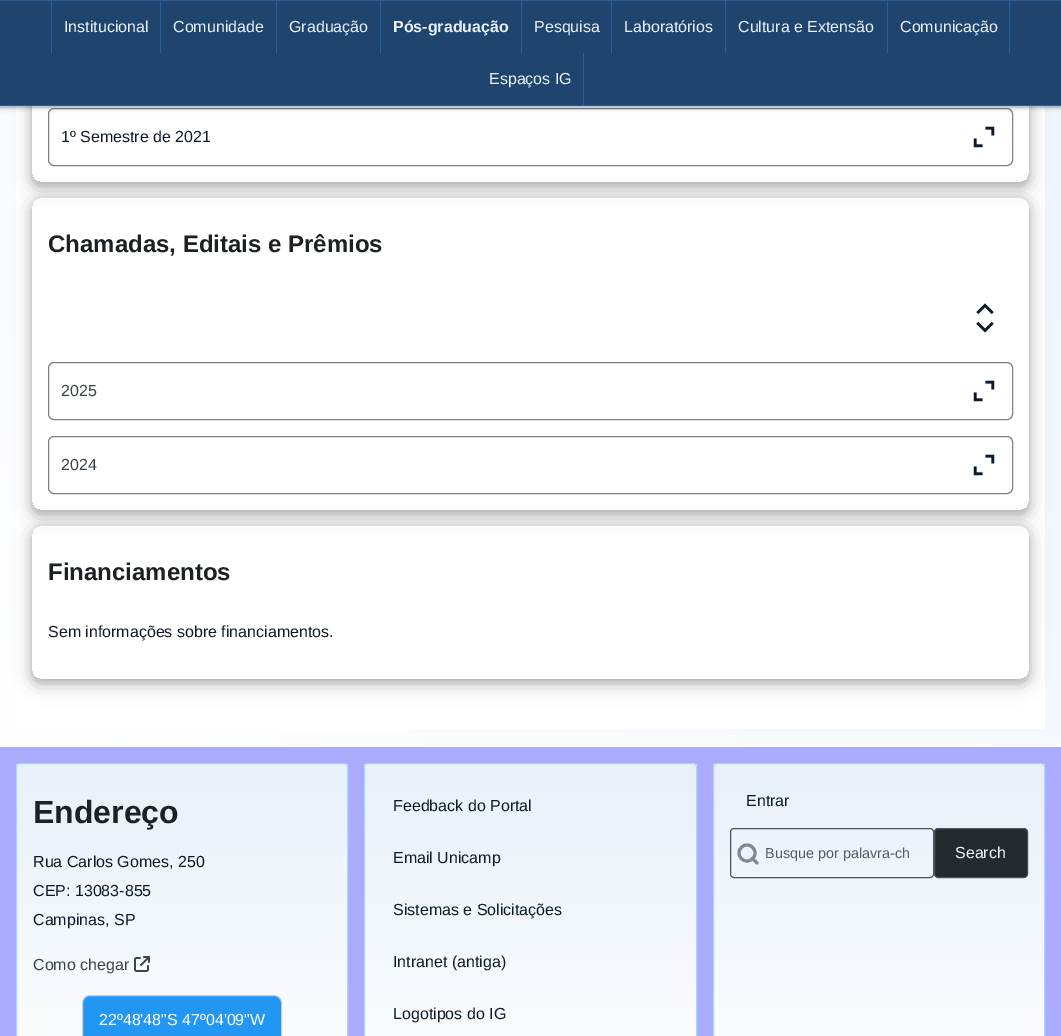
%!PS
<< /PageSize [1061 1036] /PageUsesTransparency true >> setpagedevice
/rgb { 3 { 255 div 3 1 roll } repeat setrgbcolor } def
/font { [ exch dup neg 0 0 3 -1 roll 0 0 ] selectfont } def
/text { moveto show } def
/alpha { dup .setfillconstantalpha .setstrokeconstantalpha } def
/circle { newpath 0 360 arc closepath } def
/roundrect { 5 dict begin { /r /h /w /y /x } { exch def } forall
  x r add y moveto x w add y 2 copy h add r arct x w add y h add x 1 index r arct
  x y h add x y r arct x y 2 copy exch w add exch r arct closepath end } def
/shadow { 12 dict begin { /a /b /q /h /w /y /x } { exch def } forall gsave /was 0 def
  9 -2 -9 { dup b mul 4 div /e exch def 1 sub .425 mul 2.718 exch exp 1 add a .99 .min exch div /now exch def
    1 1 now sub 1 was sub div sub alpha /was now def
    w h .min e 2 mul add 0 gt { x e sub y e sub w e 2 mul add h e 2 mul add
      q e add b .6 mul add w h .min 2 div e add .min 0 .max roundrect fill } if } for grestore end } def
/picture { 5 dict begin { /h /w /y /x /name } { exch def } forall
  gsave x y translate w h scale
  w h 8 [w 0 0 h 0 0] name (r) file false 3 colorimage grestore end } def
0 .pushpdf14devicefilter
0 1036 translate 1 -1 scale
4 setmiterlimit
255 255 255 rgb
0 0 1061 1036 rectfill
gsave 0 106 moveto 1061 0 rlineto 0 639 rlineto -1061 0 rlineto closepath clip newpath
<< /ShadingType 2 /ColorSpace /DeviceRGB /Coords [-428 317 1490 -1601] /Extend [true true] /Function << /FunctionType 2 /Domain [0 1] /C0 [1 1 1] /C1 [0.859 0.91 0.961] /N 1 >> >> shfill grestore
16 106 1029 623 rectfill
gsave
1 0 moveto 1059 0 rlineto 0 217 rlineto -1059 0 rlineto closepath 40 -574 moveto 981 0 rlineto 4.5 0 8 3.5 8 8 rcurveto 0 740 rlineto 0 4.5 -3.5 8 -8 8 rcurveto -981 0 rlineto -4.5 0 -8 -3.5 -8 -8 rcurveto 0 -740 rlineto 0 -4.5 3.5 -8 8 -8 rcurveto closepath eoclip newpath
0 0 0 rgb
32 -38 997 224 8 10 0.19 shadow
grestore
gsave
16 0 moveto 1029 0 rlineto 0 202 rlineto -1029 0 rlineto closepath 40 -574 moveto 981 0 rlineto 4.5 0 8 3.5 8 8 rcurveto 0 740 rlineto 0 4.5 -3.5 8 -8 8 rcurveto -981 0 rlineto -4.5 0 -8 -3.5 -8 -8 rcurveto 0 -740 rlineto 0 -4.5 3.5 -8 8 -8 rcurveto closepath eoclip newpath
0 0 0 rgb
32 -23 997 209 8 5 0.2 shadow
grestore
128 128 128 rgb
48.5 108.5 964 57 5.5 roundrect stroke
20 44 70 rgb
-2 -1 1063 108 0 2.5 0.5 shadow
31 69 110 rgb
0 1 1061 104 rectfill
43 95 151 rgb
0 0 1061 1 rectfill
0 105 1061 1 rectfill
160 1 1 52 rectfill
51 1 1 52 rectfill
276 1 1 52 rectfill
380 1 1 52 rectfill
521 1 1 52 rectfill
611 1 1 52 rectfill
725 1 1 52 rectfill
887 1 1 52 rectfill
1009 1 1 52 rectfill
583 53 1 52 rectfill
(img_01.rgb) 973 126 22 22 picture
gsave
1 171 moveto 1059 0 rlineto 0 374 rlineto -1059 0 rlineto closepath 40 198 moveto 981 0 rlineto 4.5 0 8 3.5 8 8 rcurveto 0 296 rlineto 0 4.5 -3.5 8 -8 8 rcurveto -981 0 rlineto -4.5 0 -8 -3.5 -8 -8 rcurveto 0 -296 rlineto 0 -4.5 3.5 -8 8 -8 rcurveto closepath eoclip newpath
0 0 0 rgb
32 202 997 312 8 10 0.19 shadow
grestore
gsave
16 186 moveto 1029 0 rlineto 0 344 rlineto -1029 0 rlineto closepath 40 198 moveto 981 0 rlineto 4.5 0 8 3.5 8 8 rcurveto 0 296 rlineto 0 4.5 -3.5 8 -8 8 rcurveto -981 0 rlineto -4.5 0 -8 -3.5 -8 -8 rcurveto 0 -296 rlineto 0 -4.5 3.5 -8 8 -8 rcurveto closepath eoclip newpath
0 0 0 rgb
32 202 997 312 8 5 0.2 shadow
grestore
(img_02.rgb) 976 303 18 30 picture
128 128 128 rgb
48.5 362.5 964 57 5.5 roundrect stroke
(img_01.rgb) 973 380 22 22 picture
48.5 436.5 964 57 5.5 roundrect stroke
(img_01.rgb) 973 454 22 22 picture
gsave
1 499 moveto 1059 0 rlineto 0 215 rlineto -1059 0 rlineto closepath 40 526 moveto 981 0 rlineto 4.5 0 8 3.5 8 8 rcurveto 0 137 rlineto 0 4.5 -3.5 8 -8 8 rcurveto -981 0 rlineto -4.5 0 -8 -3.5 -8 -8 rcurveto 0 -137 rlineto 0 -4.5 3.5 -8 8 -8 rcurveto closepath eoclip newpath
0 0 0 rgb
32 530 997 153 8 10 0.19 shadow
grestore
gsave
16 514 moveto 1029 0 rlineto 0 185 rlineto -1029 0 rlineto closepath 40 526 moveto 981 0 rlineto 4.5 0 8 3.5 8 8 rcurveto 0 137 rlineto 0 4.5 -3.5 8 -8 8 rcurveto -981 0 rlineto -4.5 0 -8 -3.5 -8 -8 rcurveto 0 -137 rlineto 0 -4.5 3.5 -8 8 -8 rcurveto closepath eoclip newpath
0 0 0 rgb
32 530 997 153 8 5 0.2 shadow
grestore
171 171 253 rgb
0 747 1061 289 rectfill
gsave
16 763 332 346 4 roundrect clip newpath
gsave 16 764 moveto 332 0 rlineto 0 272 rlineto -332 0 rlineto closepath clip newpath
<< /ShadingType 2 /ColorSpace /DeviceRGB /Coords [182 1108 182 764] /Extend [true true] /Function << /FunctionType 2 /Domain [0 1] /C0 [1 1 1] /C1 [0.91 0.941 0.976] /N 1 >> >> shfill grestore
grestore
176 213 253 rgb
16.5 763.5 331 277 3.5 roundrect stroke
(img_03.rgb) 134 956 16 16 picture
33 150 243 rgb
82.5 995.5 199 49 7.5 roundrect gsave fill grestore
204 204 204 rgb
stroke
gsave
364 763 333 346 4 roundrect clip newpath
gsave 364 764 moveto 333 0 rlineto 0 272 rlineto -333 0 rlineto closepath clip newpath
<< /ShadingType 2 /ColorSpace /DeviceRGB /Coords [531 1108 531 764] /Extend [true true] /Function << /FunctionType 2 /Domain [0 1] /C0 [1 1 1] /C1 [0.91 0.941 0.976] /N 1 >> >> shfill grestore
grestore
176 213 253 rgb
364.5 763.5 332 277 3.5 roundrect stroke
gsave
713 763 332 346 4 roundrect clip newpath
gsave 713 764 moveto 332 0 rlineto 0 272 rlineto -332 0 rlineto closepath clip newpath
<< /ShadingType 2 /ColorSpace /DeviceRGB /Coords [879 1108 879 764] /Extend [true true] /Function << /FunctionType 2 /Domain [0 1] /C0 [1 1 1] /C1 [0.91 0.941 0.976] /N 1 >> >> shfill grestore
grestore
713.5 763.5 331 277 3.5 roundrect stroke
74 85 94 rgb
730.5 828.5 203 49 3.5 roundrect stroke
125 136 147 rgb
3 setlinewidth
747 853 8 circle stroke
125 136 148 rgb
1 setlinecap
1 setlinejoin
757 863 moveto -4.5 -4.5 rlineto stroke
37 42 46 rgb
934.5 828.5 93 49 3.5 roundrect gsave fill grestore
74 85 94 rgb
1 setlinewidth
0 setlinecap
0 setlinejoin
stroke
/LiberationSans-Regular 16 font
232 240 249 rgb
(Institucional) 64 32 text
(Comunidade) 173 32 text
(Graduação) 289 32 text
/LiberationSans-Bold 16 font
(Pós-graduação) 393 32 text
/LiberationSans-Regular 16 font
(Pesquisa) 534 32 text
(Laboratórios) 624 32 text
(Cultura e Extensão) 738 32 text
(Comunicação) 900 32 text
(Espaços IG) 489 84 text
12 27 44 rgb
(1º Semestre de 2021) 61 142 text
/LiberationSans-Bold 24 font
29 33 37 rgb
(Chamadas, Editais e Prêmios) 48 252 text
/LiberationSans-Regular 16 font
59 68 75 rgb
(2025) 61 396 text
(2024) 61 470 text
/LiberationSans-Bold 24 font
29 33 37 rgb
(Financiamentos) 48 580 text
/LiberationSans-Regular 16 font
12 27 44 rgb
(Sem informações sobre financiamentos.) 48 637 text
/LiberationSans-Bold 32 font
29 33 37 rgb
(Endereço) 33 823 text
/LiberationSans-Regular 16 font
12 27 44 rgb
(Rua Carlos Gomes, 250) 33 867 text
(CEP: 13083-855) 33 896 text
(Campinas, SP) 33 925 text
59 68 75 rgb
(Como chegar) 33 970 text
255 255 255 rgb
(22º48'48"S 47º04'09"W) 99 1025 text
12 27 44 rgb
(Feedback do Portal) 393 811 text
(Email Unicamp) 393 863 text
(Sistemas e Solicitações) 393 915 text
(Intranet \(antiga\)) 393 967 text
(Logotipos do IG) 393 1019 text
(Entrar) 746 806 text
/LiberationSans-Regular 14.4 font
80 92 106 rgb
(Busque por palavra-ch) 765 858 text
/LiberationSans-Regular 16 font
244 246 247 rgb
(Search) 955 858 text
.poppdf14devicefilter showpage
